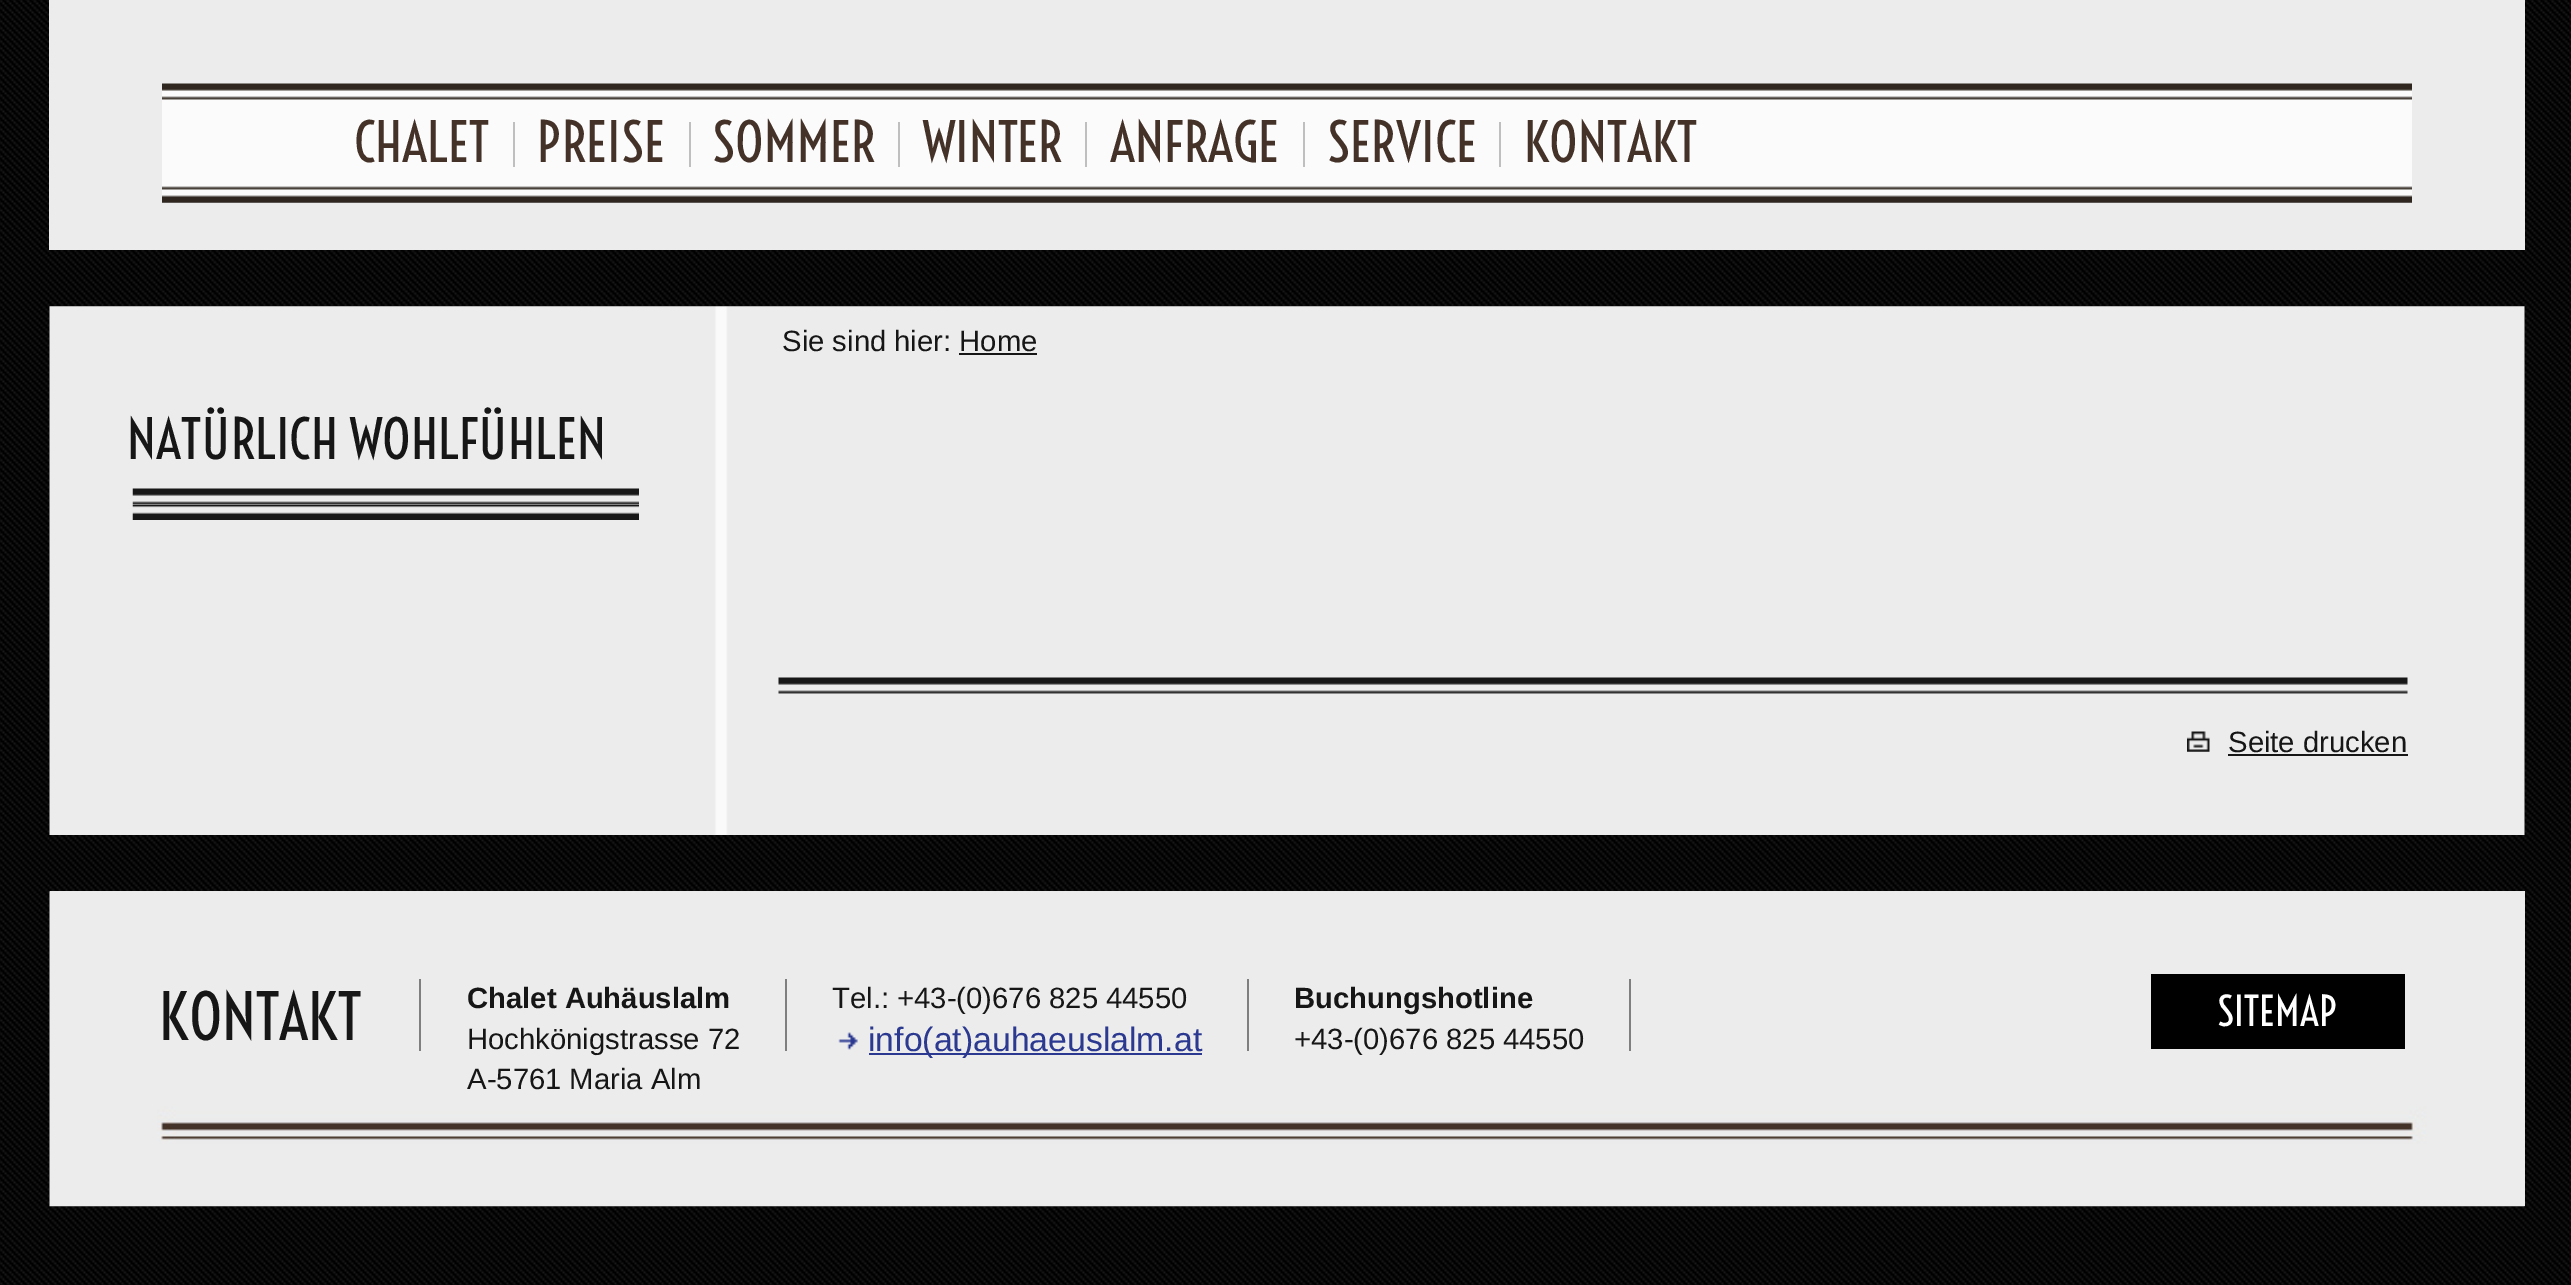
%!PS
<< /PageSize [2571 1285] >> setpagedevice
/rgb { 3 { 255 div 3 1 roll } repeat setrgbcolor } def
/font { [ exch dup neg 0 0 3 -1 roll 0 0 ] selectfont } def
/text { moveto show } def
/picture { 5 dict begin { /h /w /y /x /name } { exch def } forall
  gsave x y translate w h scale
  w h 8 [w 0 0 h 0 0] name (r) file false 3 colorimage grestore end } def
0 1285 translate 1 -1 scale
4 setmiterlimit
0 0 0 rgb
0 0 2571 1285 rectfill
(img_01.rgb) 0 0 2571 1285 picture
236 236 236 rgb
49 0 2476 250 rectfill
(img_02.rgb) 162 83 2250 120 picture
191 191 191 rgb
513 122 2 45 rectfill
689 122 2 45 rectfill
898 122 2 45 rectfill
1085 122 2 45 rectfill
1303 122 2 45 rectfill
1499 122 2 45 rectfill
(img_03.rgb) 49 306 2476 529 picture
22 22 22 rgb
959 353 78 2 rectfill
(img_04.rgb) 132 488 507 17 picture
(img_05.rgb) 132 504 507 16 picture
(img_06.rgb) 778 677 1630 17 picture
(img_07.rgb) 2187 731 23 21 picture
2228 754 180 2 rectfill
236 236 236 rgb
50 891 2475 315 rectfill
(img_08.rgb) 49 891 2476 316 picture
127 127 127 rgb
785 979 2 72 rectfill
419 979 2 72 rectfill
1247 979 2 72 rectfill
(img_09.rgb) 838 1032 20 18 picture
43 57 144 rgb
869 1053 333 2 rectfill
127 127 127 rgb
1629 979 2 72 rectfill
0 0 0 rgb
2151 974 254 75 rectfill
/Voltaire-Regular 54 font
68 50 40 rgb
(CHALET) 354 162 text
(PREISE) 537 162 text
(SOMMER) 712 162 text
(WINTER) 923 162 text
(ANFRAGE) 1110 162 text
(SERVICE) 1327 162 text
(KONTAKT) 1524 162 text
/LiberationSans-Regular 29.25 font
22 22 22 rgb
(Sie sind hier: Home) 782 351 text
/Voltaire-Regular 54 font
(NATÜRLICH WOHLFÜHLEN) 127 459 text
/LiberationSans-Regular 29.25 font
(Seite drucken) 2228 752 text
/Voltaire-Regular 63 font
(KONTAKT) 159 1040 text
/LiberationSans-Bold 29.25 font
(Chalet Auhäuslalm) 467 1008 text
/LiberationSans-Regular 29.25 font
(Hochkönigstrasse 72) 467 1049 text
(A-5761 Maria Alm) 467 1089 text
(Tel.: +43-\(0\)676 825 44550) 832 1008 text
/LiberationSans-Regular 33.75 font
43 57 144 rgb
(info\(at\)auhaeuslalm.at) 868 1051 text
/LiberationSans-Bold 29.25 font
22 22 22 rgb
(Buchungshotline) 1294 1008 text
/LiberationSans-Regular 29.25 font
(+43-\(0\)676 825 44550) 1294 1049 text
/Voltaire-Regular 40.5 font
255 255 255 rgb
(SITEMAP) 2217 1026 text
showpage
